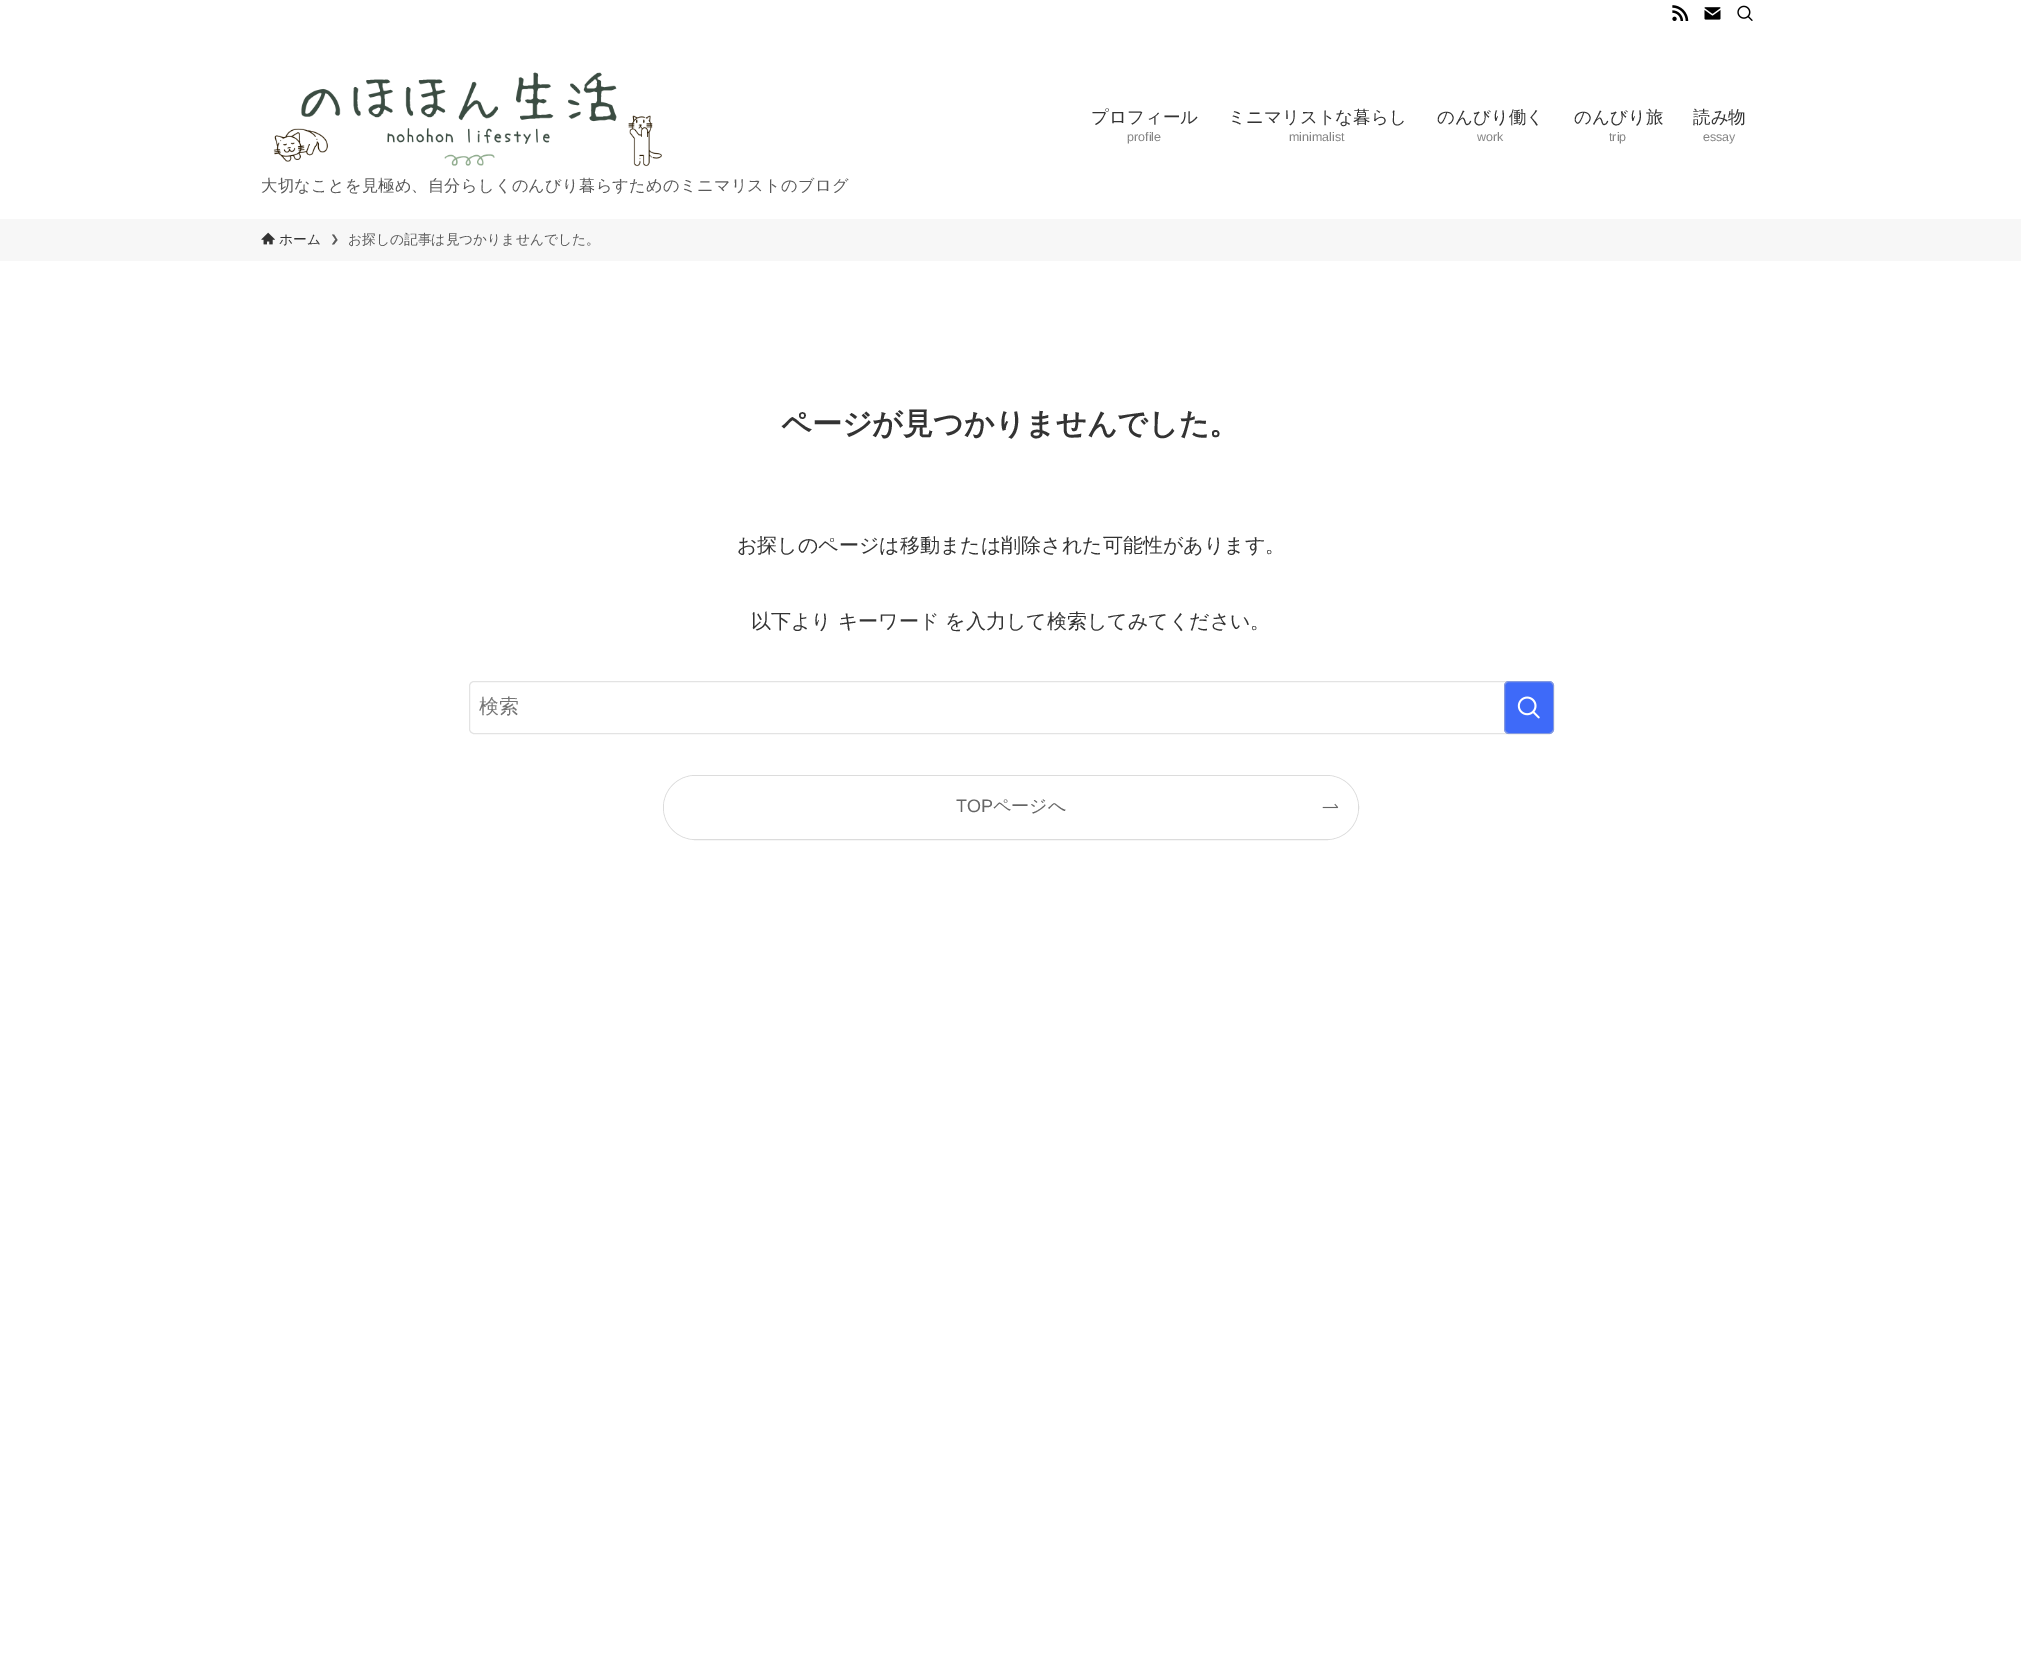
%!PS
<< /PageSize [2021 1655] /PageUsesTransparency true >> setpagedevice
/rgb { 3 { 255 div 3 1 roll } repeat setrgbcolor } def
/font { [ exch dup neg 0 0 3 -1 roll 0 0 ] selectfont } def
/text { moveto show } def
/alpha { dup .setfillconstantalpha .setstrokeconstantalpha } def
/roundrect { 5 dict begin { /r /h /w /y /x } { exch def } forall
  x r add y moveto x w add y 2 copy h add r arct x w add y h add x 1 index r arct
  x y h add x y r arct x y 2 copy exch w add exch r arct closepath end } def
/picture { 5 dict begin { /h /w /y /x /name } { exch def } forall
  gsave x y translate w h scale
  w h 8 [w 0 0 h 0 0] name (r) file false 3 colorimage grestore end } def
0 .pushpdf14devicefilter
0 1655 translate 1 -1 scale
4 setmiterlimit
255 255 255 rgb
0 0 2021 1655 rectfill
(img_01.rgb) 1672 5 17 16 picture
(img_02.rgb) 1704 7 17 13 picture
(img_03.rgb) 1737 5 16 16 picture
(img_04.rgb) 273 72 389 95 picture
247 247 247 rgb
0 219 2021 42 rectfill
(img_05.rgb) 261 232 14 13 picture
90 90 90 rgb
334 234.5 moveto -2 0 rlineto 3.5 5 rlineto -3.5 5 rlineto 2 0 rlineto 3.5 -4.5 rlineto closepath fill
227 227 227 rgb
469.5 681.5 1084 52 4.5 roundrect stroke
62 106 249 rgb
1504 681 50 53 5 roundrect fill
0.5 alpha
199 199 199 rgb
1504.5 681.5 49 52 4.5 roundrect stroke
1 alpha
(img_06.rgb) 1517 696 23 23 picture
220 220 220 rgb
663.5 775.5 695 64 32 roundrect stroke
255 255 255 rgb
664 776 694 63 31.5 roundrect fill
(img_07.rgb) 1322 803 17 6 picture
/WenQuanYiZenHei-Medium 17.5 font
51 51 51 rgb
(プロフィール) 1091 123 text
/LiberationSans-Regular 12.5 font
133 133 133 rgb
(profile) 1127 141 text
/WenQuanYiZenHei-Medium 17.5 font
51 51 51 rgb
(ミニマリストな暮らし) 1228 123 text
/LiberationSans-Regular 12.5 font
133 133 133 rgb
(minimalist) 1289 141 text
/WenQuanYiZenHei-Medium 17.5 font
51 51 51 rgb
(のんびり働く) 1437 123 text
/LiberationSans-Regular 12.5 font
133 133 133 rgb
(work) 1477 141 text
/WenQuanYiZenHei-Medium 17.5 font
51 51 51 rgb
(のんびり旅) 1574 123 text
/LiberationSans-Regular 12.5 font
133 133 133 rgb
(trip) 1609 141 text
/WenQuanYiZenHei-Medium 17.5 font
51 51 51 rgb
(読み物) 1693 123 text
/LiberationSans-Regular 12.5 font
133 133 133 rgb
(essay) 1703 141 text
/WenQuanYiZenHei-Medium 16.25 font
90 90 90 rgb
261 191 moveto 0.25 0 (大切なことを見極め、自分らしくのんびり暮らすためのミニマリストのブログ) ashow
/WenQuanYiZenHei-Medium 13.75 font
51 51 51 rgb
(ホーム) 279 244 text
90 90 90 rgb
(お探しの記事は見つかりませんでした。) 348 244 text
/WenQuanYiZenHei-Bold 30 font
51 51 51 rgb
(ページが見つかりませんでした。) 781 434 text
/WenQuanYiZenHei-Medium 20 font
(お探しのページは移動または削除された可能性があります。) 737 552 text
(以下より キーワード を入力して検索してみてください。) 751 628 text
117 117 117 rgb
(検索) 479 713 text
/LiberationSans-Regular 18 font
102 102 102 rgb
(TOP) 956 812 text
/WenQuanYiZenHei-Medium 18 font
(ページへ) 993 812 text
.poppdf14devicefilter showpage
